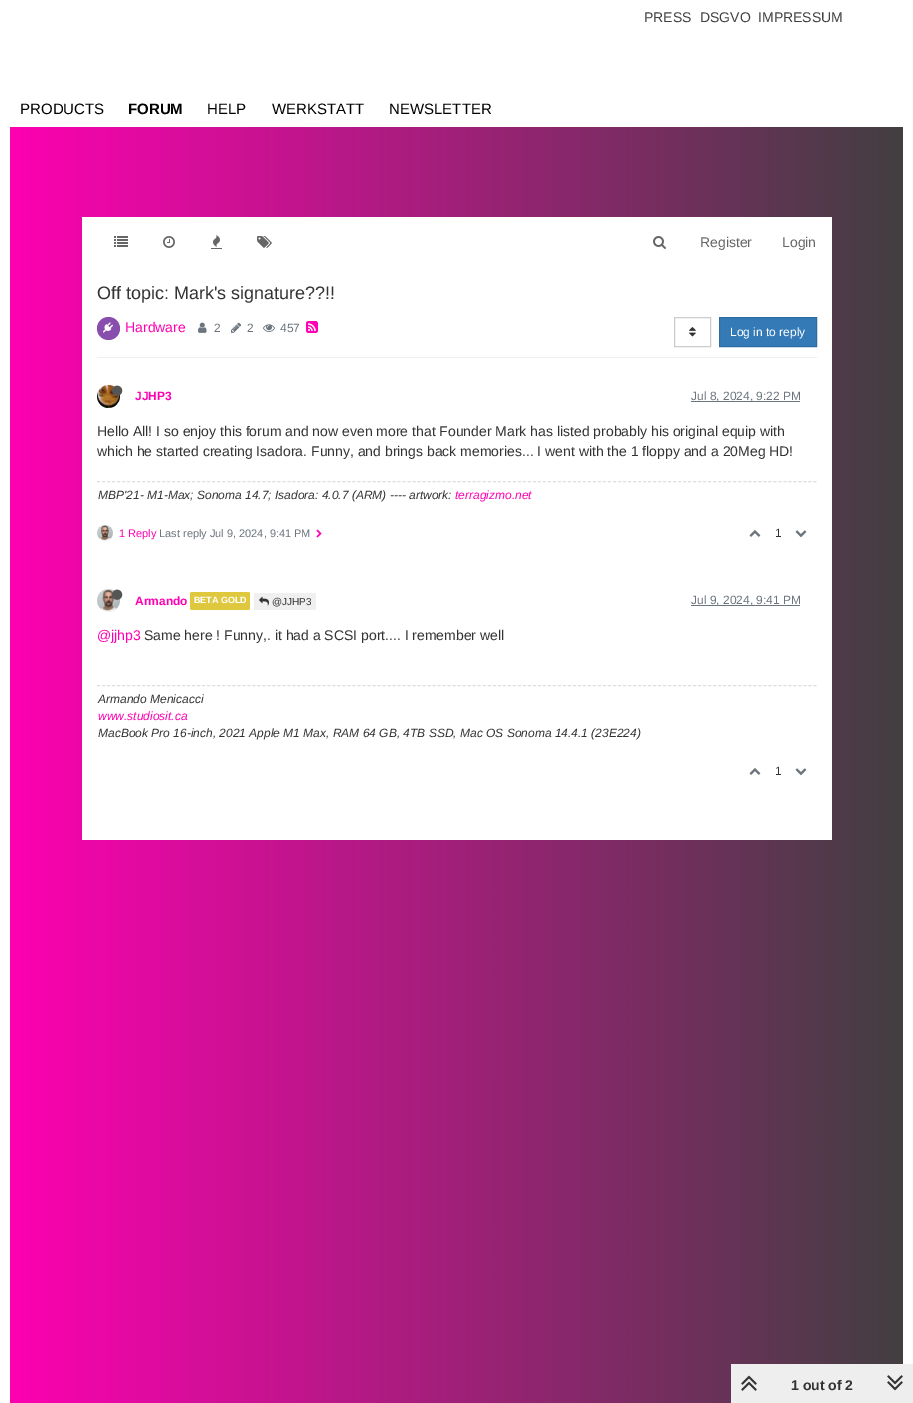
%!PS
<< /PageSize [913 1403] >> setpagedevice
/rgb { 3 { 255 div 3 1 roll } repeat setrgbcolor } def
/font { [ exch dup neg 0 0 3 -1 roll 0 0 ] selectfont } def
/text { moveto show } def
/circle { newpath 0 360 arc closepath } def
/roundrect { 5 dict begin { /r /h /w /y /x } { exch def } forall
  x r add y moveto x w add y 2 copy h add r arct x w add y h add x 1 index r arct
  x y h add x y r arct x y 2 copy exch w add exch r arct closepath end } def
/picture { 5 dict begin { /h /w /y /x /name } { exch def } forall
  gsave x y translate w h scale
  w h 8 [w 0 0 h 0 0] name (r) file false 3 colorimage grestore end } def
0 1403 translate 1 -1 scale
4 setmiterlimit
255 255 255 rgb
0 0 913 1403 rectfill
gsave 10 127 moveto 893 0 rlineto 0 1276 rlineto -893 0 rlineto closepath clip newpath
<< /ShadingType 2 /ColorSpace /DeviceRGB /Coords [0 702 913 702] /Extend [true true] /Function << /FunctionType 2 /Domain [0 1] /C0 [1 0 0.698] /C1 [0.251 0.251 0.251] /N 1 >> >> shfill grestore
82 217 750 623 rectfill
(img_01.rgb) 114 236 14 11 picture
(img_02.rgb) 163 236 12 12 picture
(img_03.rgb) 211 235 11 14 picture
(img_04.rgb) 257 236 15 12 picture
(img_05.rgb) 653 236 13 13 picture
238 238 238 rgb
97 357 720 1 rectfill
135 78 173 rgb
108.5 328.5 11.5 circle fill
(img_06.rgb) 103 322 10 11 picture
(img_07.rgb) 198 322 9 11 picture
(img_08.rgb) 231 322 11 11 picture
(img_09.rgb) 263 324 12 8 picture
(img_10.rgb) 306 321 12 12 picture
204 204 204 rgb
674.5 317.5 36 29 rectstroke
(img_11.rgb) 689 327 7 10 picture
51 122 183 rgb
719.5 317.5 moveto 97 0 rlineto 0 29 rlineto -97 0 rlineto closepath gsave fill grestore
46 109 164 rgb
stroke
(img_12.rgb) 97 385 23 23 picture
(img_13.rgb) 112 385 11 11 picture
108 117 125 rgb
691 401 109 1 rectfill
222 222 222 rgb
[3 2.01] 0 setdash
97 481.5 moveto 720 0 rlineto stroke
(img_14.rgb) 97 525 16 16 picture
(img_15.rgb) 316 529 6 9 picture
(img_16.rgb) 749 530 12 7 picture
(img_17.rgb) 795 530 12 8 picture
(img_18.rgb) 97 589 23 23 picture
(img_19.rgb) 112 589 11 11 picture
224 200 62 rgb
190 592 60 18 2 roundrect fill
240 240 240 rgb
254 593 62 17 rectfill
(img_20.rgb) 259 596 10 10 picture
108 117 125 rgb
691 605 109 1 rectfill
222 222 222 rgb
97 685.5 moveto 720 0 rlineto stroke
(img_16.rgb) 749 768 12 7 picture
(img_17.rgb) 795 768 12 8 picture
238 238 238 rgb
731 1364 182 39 rectfill
(img_21.rgb) 741 1375 16 16 picture
(img_22.rgb) 887 1375 16 16 picture
/LiberationSans-Regular 14 font
64 64 64 rgb
(PRESS) 644 22 text
(DSGVO) 700 22 text
(IMPRESSUM) 758 22 text
/LiberationSans-Regular 15 font
0 0 0 rgb
(PRODUCTS) 20 114 text
/LiberationSans-Bold 15 font
(FORUM) 128 114 text
/LiberationSans-Regular 15 font
(HELP) 207 114 text
(WERKSTATT) 272 114 text
(NEWSLETTER) 389 114 text
/LiberationSans-Regular 14 font
102 102 102 rgb
(Register) 700 247 text
(Login) 782 247 text
/LiberationSans-Regular 18 font
51 51 51 rgb
(Off topic: Mark's signature??!!) 97 299 text
/LiberationSans-Regular 14 font
255 0 178 rgb
(Hardware) 125 332 text
/LiberationSans-Regular 12 font
108 117 125 rgb
(2) 214 332 text
(2) 247 332 text
(457) 280 332 text
255 255 255 rgb
(Log in to reply) 730 336 text
/LiberationSans-Bold 12 font
255 0 178 rgb
(JJHP3) 135 400 text
/LiberationSans-Regular 12 font
108 117 125 rgb
(Jul 8, 2024, 9:22 PM) 691 400 text
/LiberationSans-Regular 14 font
51 51 51 rgb
(Hello All! I so enjoy this forum and now even more that Founder Mark has listed probably his original equip with) 97 436 text
(which he started creating Isadora. Funny, and brings back memories... I went with the 1 floppy and a 20Meg HD!) 97 456 text
/LiberationSans-Italic 12 font
(MBP'21- M1-Max; Sonoma 14.7; Isadora: 4.0.7 \(ARM\) ---- artwork:) 98 499 text
255 0 178 rgb
(terragizmo.net) 455 499 text
/LiberationSans-Regular 11 font
(1 Reply) 119 537 text
108 117 125 rgb
(Last reply Jul 9, 2024, 9:41 PM) 159 537 text
/LiberationSans-Regular 12 font
51 51 51 rgb
(1) 775 537 text
/LiberationSans-Bold 12 font
255 0 178 rgb
(Armando) 135 605 text
/LiberationSans-Bold 9 font
255 255 255 rgb
(BETA GOLD) 194 603 text
/LiberationSans-Regular 10 font
51 51 51 rgb
(@JJHP3) 272 605 text
/LiberationSans-Regular 12 font
108 117 125 rgb
(Jul 9, 2024, 9:41 PM) 691 604 text
/LiberationSans-Regular 14 font
255 0 178 rgb
(@jjhp3) 97 640 text
51 51 51 rgb
(Same here ! Funny,. it had a SCSI port.... I remember well) 144 640 text
/LiberationSans-Italic 12 font
(Armando Menicacci) 98 703 text
255 0 178 rgb
(www.studiosit.ca) 98 720 text
51 51 51 rgb
(MacBook Pro 16-inch, 2021 Apple M1 Max, RAM 64 GB, 4TB SSD, Mac OS Sonoma 14.4.1 \(23E224\)) 98 737 text
/LiberationSans-Regular 12 font
(1) 775 775 text
/LiberationSans-Bold 14 font
(1 out of 2) 791 1390 text
showpage
